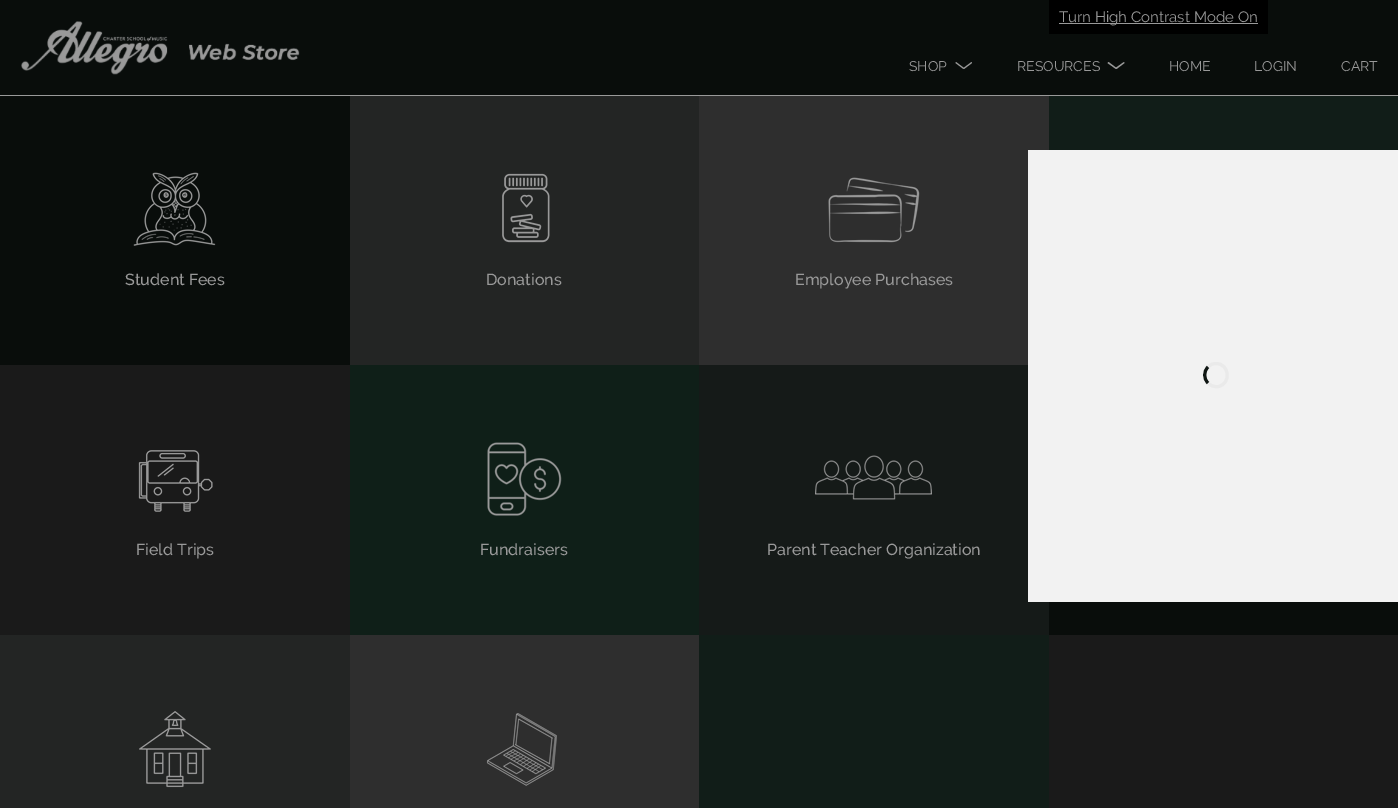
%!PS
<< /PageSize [1398 808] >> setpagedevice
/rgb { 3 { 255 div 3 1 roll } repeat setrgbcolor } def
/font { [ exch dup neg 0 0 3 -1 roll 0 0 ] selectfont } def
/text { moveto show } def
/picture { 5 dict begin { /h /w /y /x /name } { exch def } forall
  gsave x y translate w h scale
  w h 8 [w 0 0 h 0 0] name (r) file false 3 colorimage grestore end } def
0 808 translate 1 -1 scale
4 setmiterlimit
9 13 11 rgb
0 0 1398 808 rectfill
153 153 153 rgb
0 95 1398 1 rectfill
0 0 0 rgb
1049 0 219 34 rectfill
153 153 153 rgb
1059 23 199 1 rectfill
(img_01.rgb) 21 21 279 54 picture
963.5 68 moveto 8 -6 rlineto 0.5 1 rlineto -8 6 rlineto closepath fill
956 62 moveto 8 6 rlineto -0.5 1 rlineto -8 -6 rlineto closepath fill
1115.5 68 moveto 8.5 -6 rlineto 0.5 1 rlineto -8 6 rlineto closepath fill
1108.5 62 moveto 8 6 rlineto -0.5 1 rlineto -8.5 -6 rlineto closepath fill
17 29 24 rgb
1049 96 349 54 rectfill
(img_02.rgb) 133 172 83 74 picture
35 37 36 rgb
350 96 349 269 rectfill
(img_03.rgb) 502 173 48 70 picture
46 46 46 rgb
699 96 350 269 rectfill
(img_04.rgb) 828 177 92 66 picture
26 26 26 rgb
0 365 350 270 rectfill
(img_05.rgb) 138 450 75 62 picture
15 31 24 rgb
350 365 349 270 rectfill
(img_06.rgb) 487 442 75 74 picture
21 26 24 rgb
699 365 350 270 rectfill
(img_07.rgb) 815 455 117 45 picture
35 37 36 rgb
0 635 350 173 rectfill
(img_08.rgb) 139 711 72 77 picture
46 46 46 rgb
350 635 349 173 rectfill
(img_09.rgb) 486 713 71 73 picture
17 29 24 rgb
699 635 350 173 rectfill
26 26 26 rgb
1049 635 349 173 rectfill
242 242 242 rgb
1028 150 370 452 rectfill
234 234 234 rgb
3 setlinewidth
1208 367 moveto 2 -2.5 5 -3.5 8 -3.5 rcurveto 13.5 0 15.5 20 2.5 23 rcurveto -4 0.5 -8 -0.5 -10.5 -3.5 rcurveto stroke
15 22 19 rgb
1208 383 moveto -4.5 -4.5 -4.5 -11.5 0 -16 rcurveto stroke
/Raleway-Regular 15 font
153 153 153 rgb
(Turn High Contrast Mode On) 1059 22 text
/Raleway-Regular 14 font
(SHOP) 909 71 text
(RESOURCES) 1017 71 text
(HOME) 1169 71 text
(LOGIN) 1254 71 text
(CART) 1341 71 text
/Raleway-Medium 16 font
(Student Fees) 125 285 text
(Donations) 486 285 text
(Employee Purchases) 795 285 text
(Field Trips) 136 555 text
(Fundraisers) 480 555 text
(Parent Teacher Organization) 767 555 text
showpage
